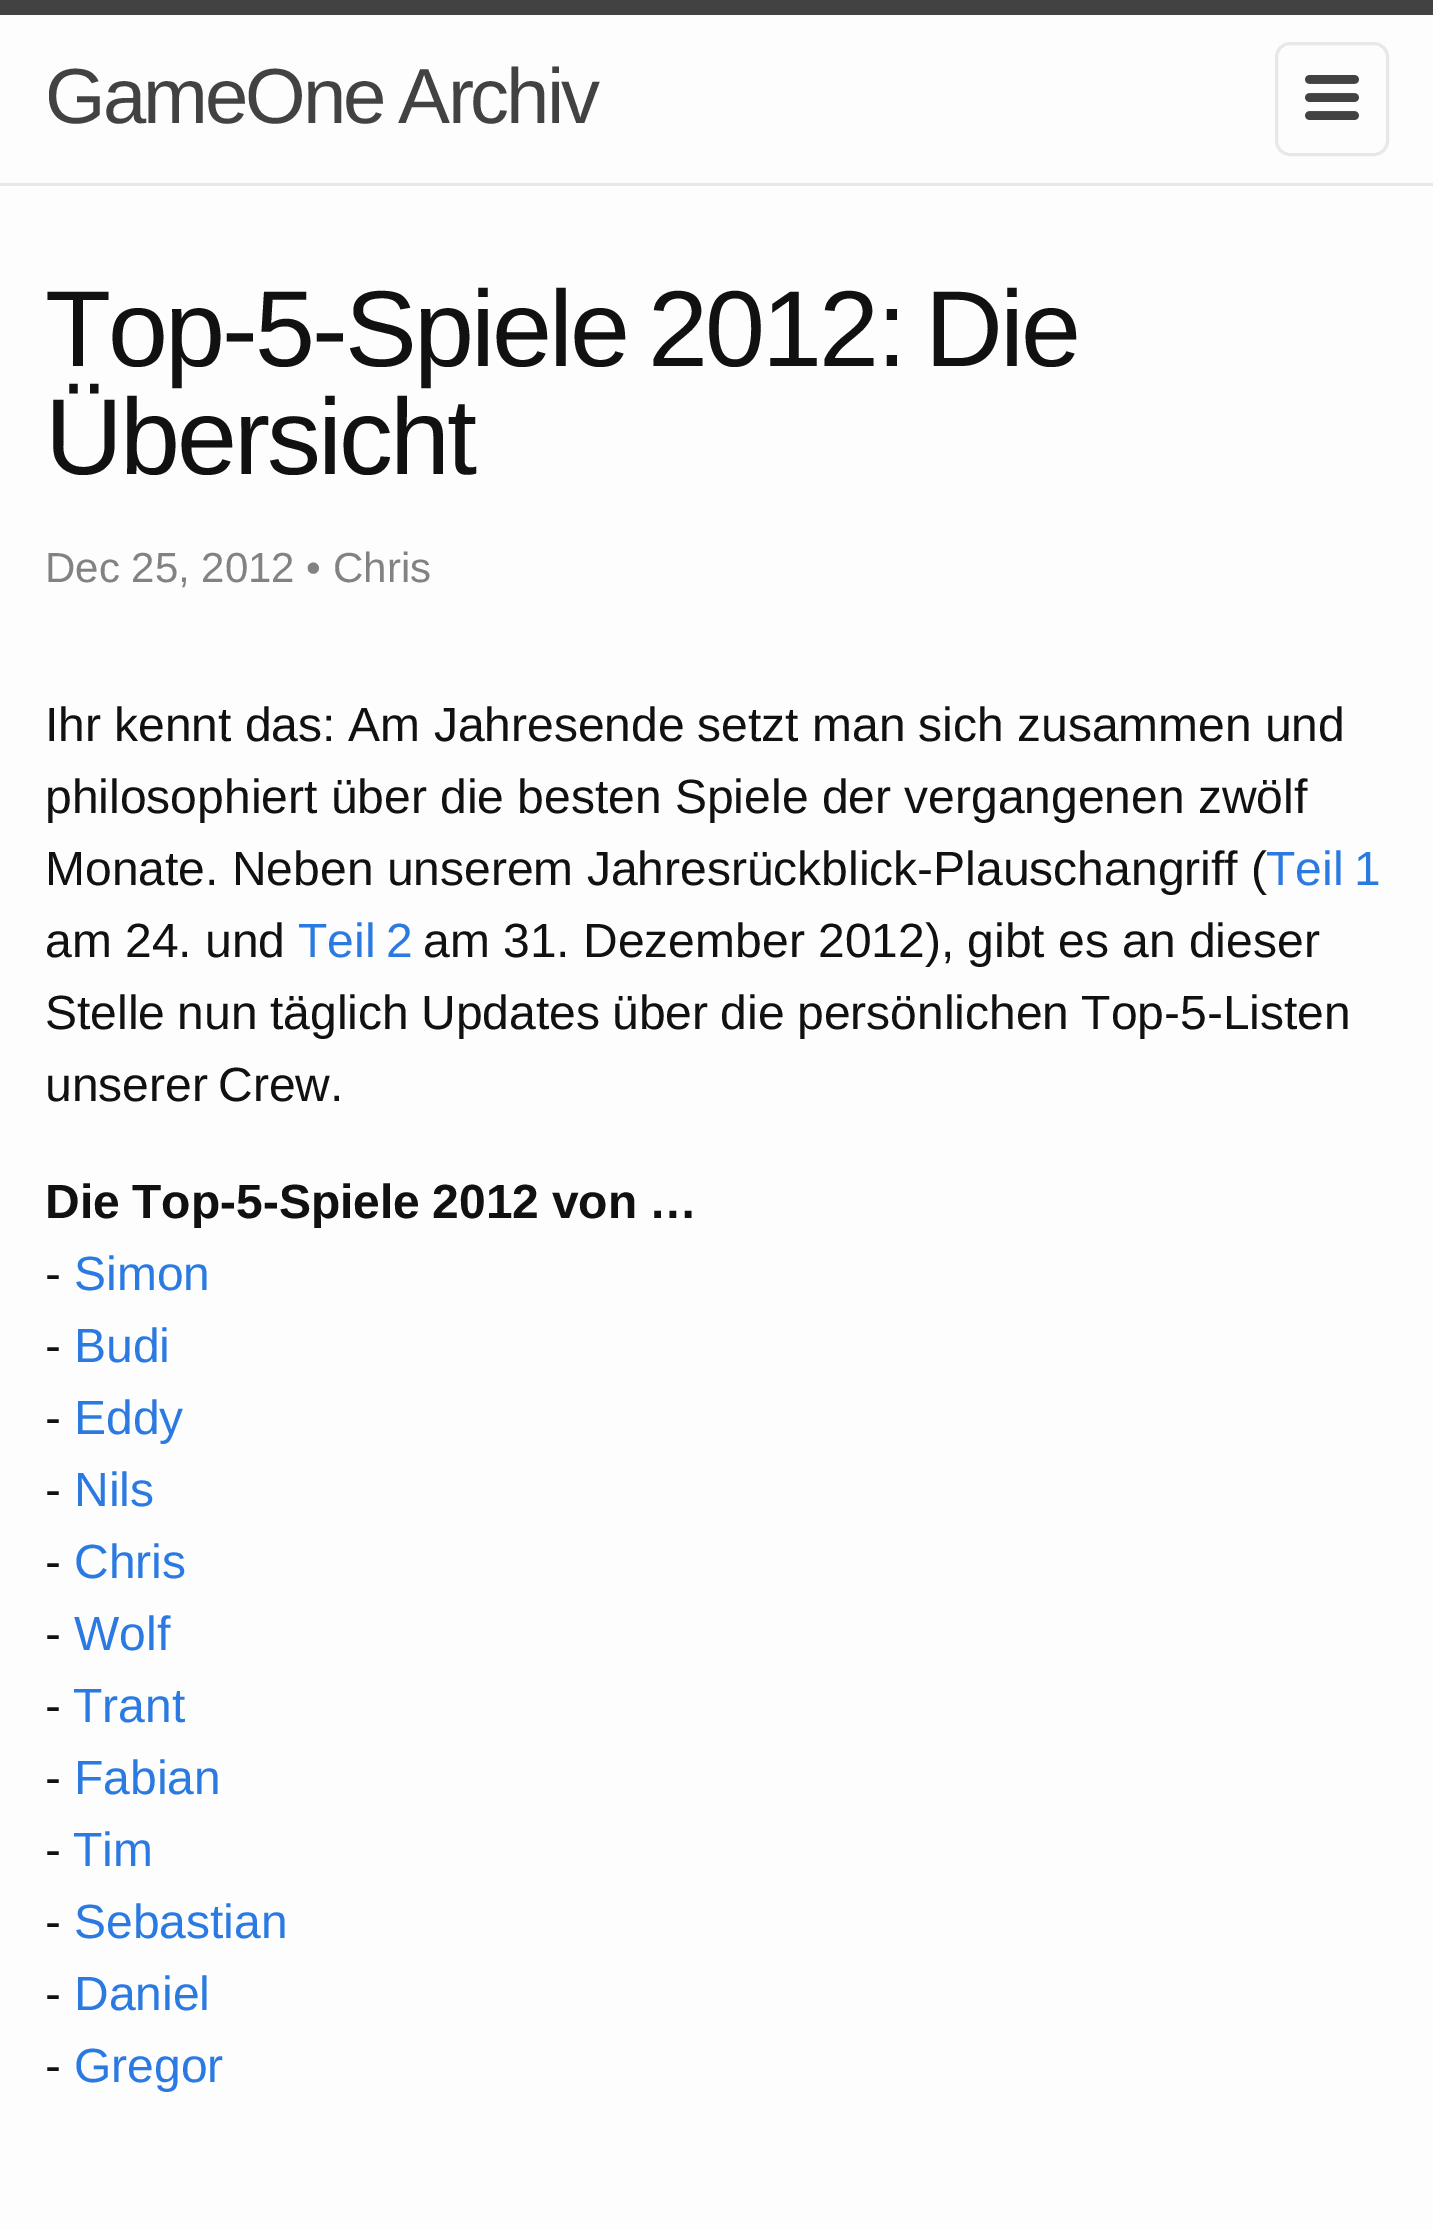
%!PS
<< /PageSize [1433 2230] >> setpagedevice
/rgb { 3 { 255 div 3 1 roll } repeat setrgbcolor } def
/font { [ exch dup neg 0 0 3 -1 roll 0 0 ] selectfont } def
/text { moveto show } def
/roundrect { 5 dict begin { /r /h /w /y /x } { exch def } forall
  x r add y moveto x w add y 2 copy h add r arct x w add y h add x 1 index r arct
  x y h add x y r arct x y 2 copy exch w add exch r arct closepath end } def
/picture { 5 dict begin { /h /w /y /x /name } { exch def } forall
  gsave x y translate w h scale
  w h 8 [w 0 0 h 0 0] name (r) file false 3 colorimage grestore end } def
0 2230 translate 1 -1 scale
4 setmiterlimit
253 253 253 rgb
0 0 1433 2230 rectfill
66 66 66 rgb
0 0 1433 15 rectfill
232 232 232 rgb
0 183 1433 3 rectfill
3 setlinewidth
1276.5 43.5 111 111 13.5 roundrect stroke
(img_01.rgb) 1305 75 54 45 picture
/LiberationSans-Regular 78 font
66 66 66 rgb
45 123 moveto -4 0 32 -3 0 (GameOne Archiv) awidthshow
/LiberationSans-Regular 108 font
17 17 17 rgb
45 366 moveto -6 0 32 -3 0 (Top-5-Spiele 2012: Die) awidthshow
45 474 moveto -3 0 (Übersicht) ashow
/LiberationSans-Regular 42 font
130 130 130 rgb
(Dec 25, 2012 • Chris) 45 582 text
/LiberationSans-Regular 48 font
17 17 17 rgb
45 741 moveto -0.25 0 32 (Ihr kennt das: Am Jahresende setzt man sich zusammen und) widthshow
(philosophiert über die besten Spiele der vergangenen zwölf) 45 813 text
(Monate. Neben unserem Jahresrückblick-Plauschangriff \() 45 885 text
42 122 226 rgb
1266 885 moveto -3 0 32 (Teil 1) widthshow
17 17 17 rgb
(am 24. und) 45 957 text
42 122 226 rgb
298 957 moveto -3 0 32 (Teil 2) widthshow
17 17 17 rgb
(am 31. Dezember 2012\), gibt es an dieser) 423 957 text
45 1029 moveto -1 0 32 (Stelle nun täglich Updates über die persönlichen Top-5-Listen) widthshow
45 1101 moveto -3 0 32 (unserer Crew.) widthshow
/LiberationSans-Bold 48 font
45 1218 moveto -1 0 32 (Die Top-5-Spiele 2012 von …) widthshow
/LiberationSans-Regular 48 font
(-) 45 1290 text
42 122 226 rgb
(Simon) 74 1290 text
17 17 17 rgb
(-) 45 1362 text
42 122 226 rgb
(Budi) 74 1362 text
17 17 17 rgb
(-) 45 1434 text
42 122 226 rgb
(Eddy) 74 1434 text
17 17 17 rgb
(-) 45 1506 text
42 122 226 rgb
(Nils) 74 1506 text
17 17 17 rgb
(-) 45 1578 text
42 122 226 rgb
(Chris) 74 1578 text
17 17 17 rgb
(-) 45 1650 text
42 122 226 rgb
(Wolf) 74 1650 text
17 17 17 rgb
(-) 45 1722 text
42 122 226 rgb
(Trant) 73 1722 text
17 17 17 rgb
(-) 45 1794 text
42 122 226 rgb
(Fabian) 74 1794 text
17 17 17 rgb
(-) 45 1866 text
42 122 226 rgb
(Tim) 73 1866 text
17 17 17 rgb
(-) 45 1938 text
42 122 226 rgb
(Sebastian) 74 1938 text
17 17 17 rgb
(-) 45 2010 text
42 122 226 rgb
(Daniel) 74 2010 text
17 17 17 rgb
(-) 45 2082 text
42 122 226 rgb
(Gregor) 74 2082 text
showpage
